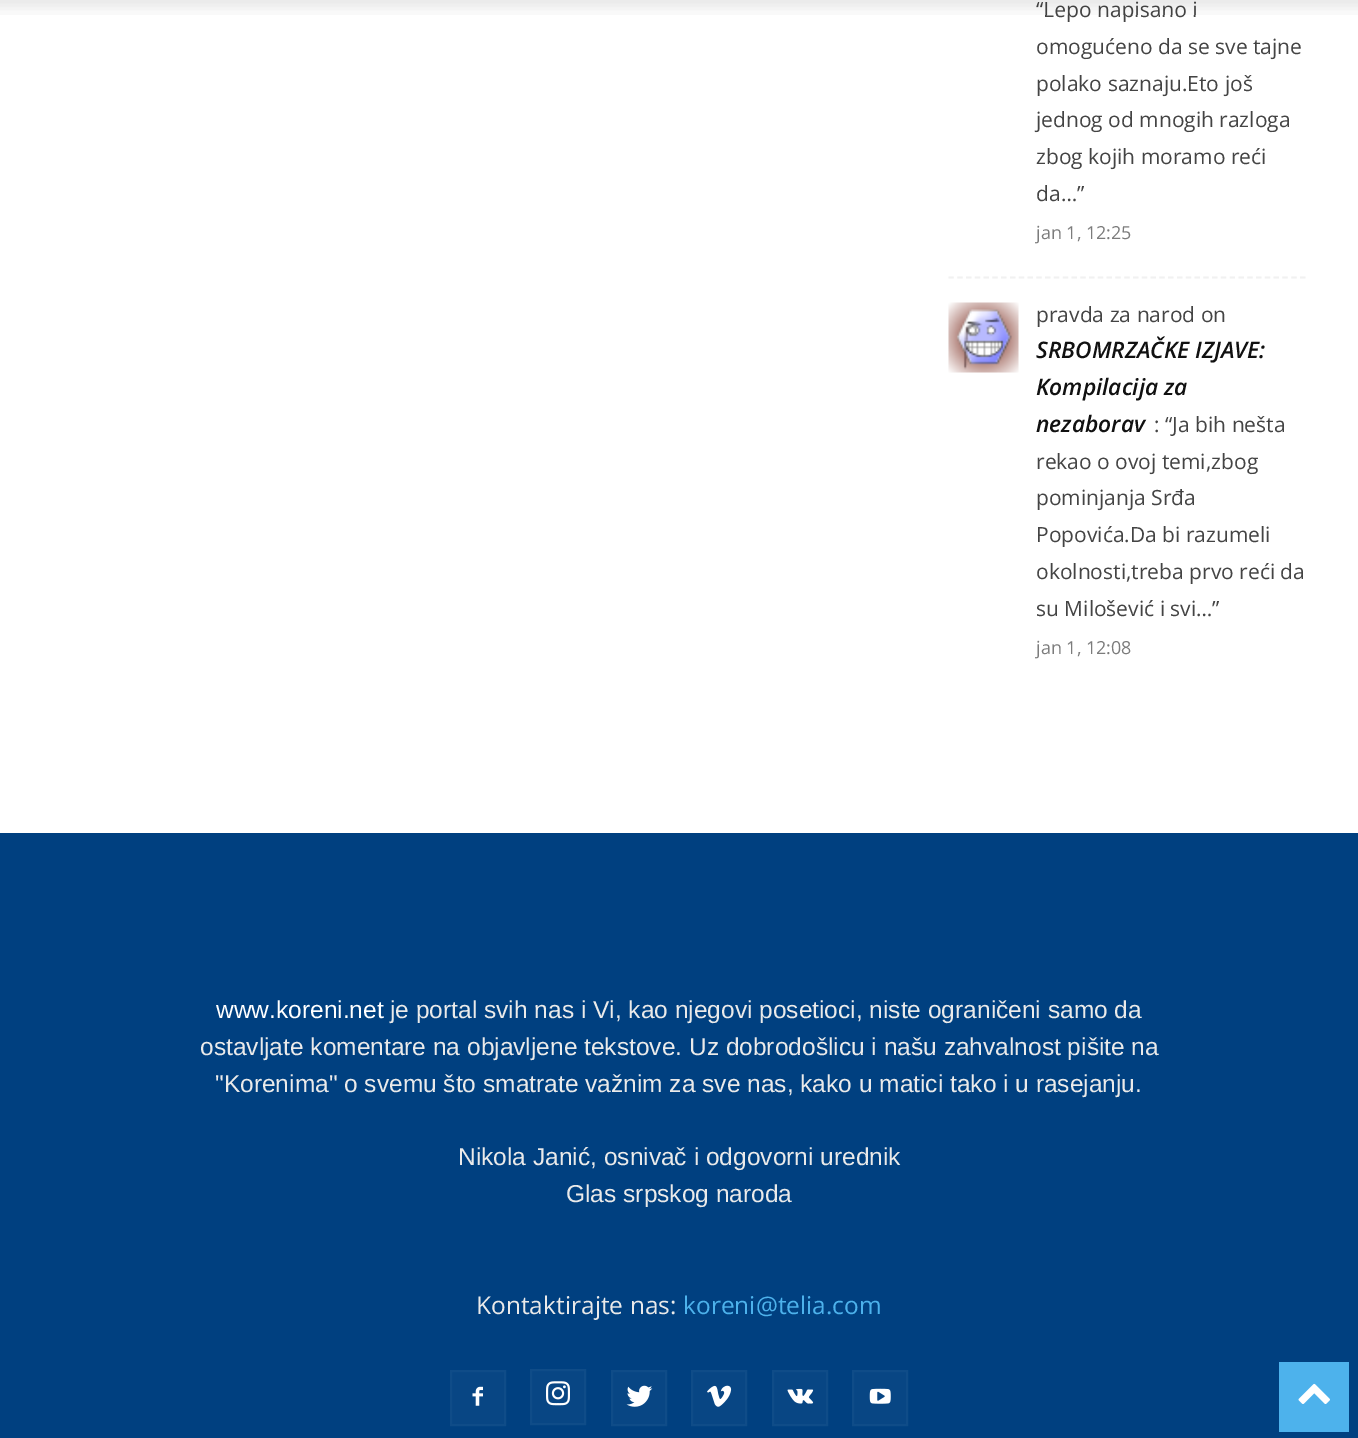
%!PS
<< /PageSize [1358 1438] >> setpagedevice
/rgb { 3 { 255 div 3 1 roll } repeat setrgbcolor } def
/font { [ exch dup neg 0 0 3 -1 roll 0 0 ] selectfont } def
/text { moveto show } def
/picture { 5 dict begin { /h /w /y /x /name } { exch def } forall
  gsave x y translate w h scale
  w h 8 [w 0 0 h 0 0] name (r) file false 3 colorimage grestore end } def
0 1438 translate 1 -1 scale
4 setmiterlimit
255 255 255 rgb
0 0 1358 1438 rectfill
241 241 241 rgb
1.8 setlinewidth
[5.25 3.54] 0 setdash
948.5 277.5 moveto 357 0 rlineto stroke
(img_02.rgb) 948 302 71 71 picture
0 64 128 rgb
0 833 1358 605 rectfill
8 70 132 rgb
452 1372 52 52 rectfill
(img_03.rgb) 472 1386 11 20 picture
15 76 136 rgb
2 setlinewidth
[] 0 setdash
451 1371 54 54 rectstroke
8 70 132 rgb
532 1371 52 52 rectfill
(img_04.rgb) 546 1381 24 25 picture
15 76 136 rgb
531 1370 54 54 rectstroke
8 70 132 rgb
613 1372 52 52 rectfill
(img_05.rgb) 626 1385 27 22 picture
15 76 136 rgb
612 1371 54 54 rectstroke
8 70 132 rgb
693 1372 52 52 rectfill
(img_06.rgb) 707 1385 25 22 picture
15 76 136 rgb
692 1371 54 54 rectstroke
8 70 132 rgb
774 1372 52 52 rectfill
(img_07.rgb) 787 1388 27 16 picture
15 76 136 rgb
773 1371 54 54 rectstroke
8 70 132 rgb
854 1372 52 52 rectfill
(img_08.rgb) 869 1388 22 16 picture
15 76 136 rgb
853 1371 54 54 rectstroke
77 178 236 rgb
1279 1362 70 70 rectfill
(img_09.rgb) 1298 1383 32 21 picture
/OpenSans-Regular 21 font
68 68 68 rgb
(“Lepo napisano i) 1036 17 text
(img_01.rgb) 0 0 1358 15 picture
(omogućeno da se sve tajne) 1036 54 text
(polako saznaju.Eto još) 1036 91 text
(jednog od mnogih razloga) 1036 127 text
(zbog kojih moramo reći) 1036 164 text
(da…”) 1036 201 text
/OpenSans-Regular 18 font
124 124 124 rgb
(jan 1, 12:25) 1036 239 text
/OpenSans-Regular 21 font
68 68 68 rgb
(pravda za narod on) 1036 322 text
/OpenSans-SemiBoldItalic 22.75 font
17 17 17 rgb
(SRBOMRZAČKE IZJAVE:) 1036 358 text
(Kompilacija za) 1036 395 text
(nezaborav) 1036 432 text
/OpenSans-Regular 21 font
68 68 68 rgb
(: “Ja bih nešta) 1154 432 text
(rekao o ovoj temi,zbog) 1036 469 text
(pominjanja Srđa) 1036 505 text
(Popovića.Da bi razumeli) 1036 542 text
(okolnosti,treba prvo reći da) 1036 579 text
(su Milošević i svi…”) 1036 616 text
/OpenSans-Regular 18 font
124 124 124 rgb
(jan 1, 12:08) 1036 654 text
/LiberationSans-Regular 24.5 font
255 255 255 rgb
(www.koreni.net) 216 1018 text
234 234 234 rgb
(je portal svih nas i Vi, kao njegovi posetioci, niste ograničeni samo da) 390 1018 text
(ostavljate komentare na objavljene tekstove. Uz dobrodošlicu i našu zahvalnost pišite na) 200 1055 text
("Korenima" o svemu što smatrate važnim za sve nas, kako u matici tako i u rasejanju.) 215 1092 text
(Nikola Janić, osnivač i odgovorni urednik) 458 1165 text
(Glas srpskog naroda) 566 1202 text
/OpenSans-Regular 24.5 font
(Kontaktirajte nas:) 476 1314 text
77 178 236 rgb
(koreni@telia.com) 683 1314 text
showpage
